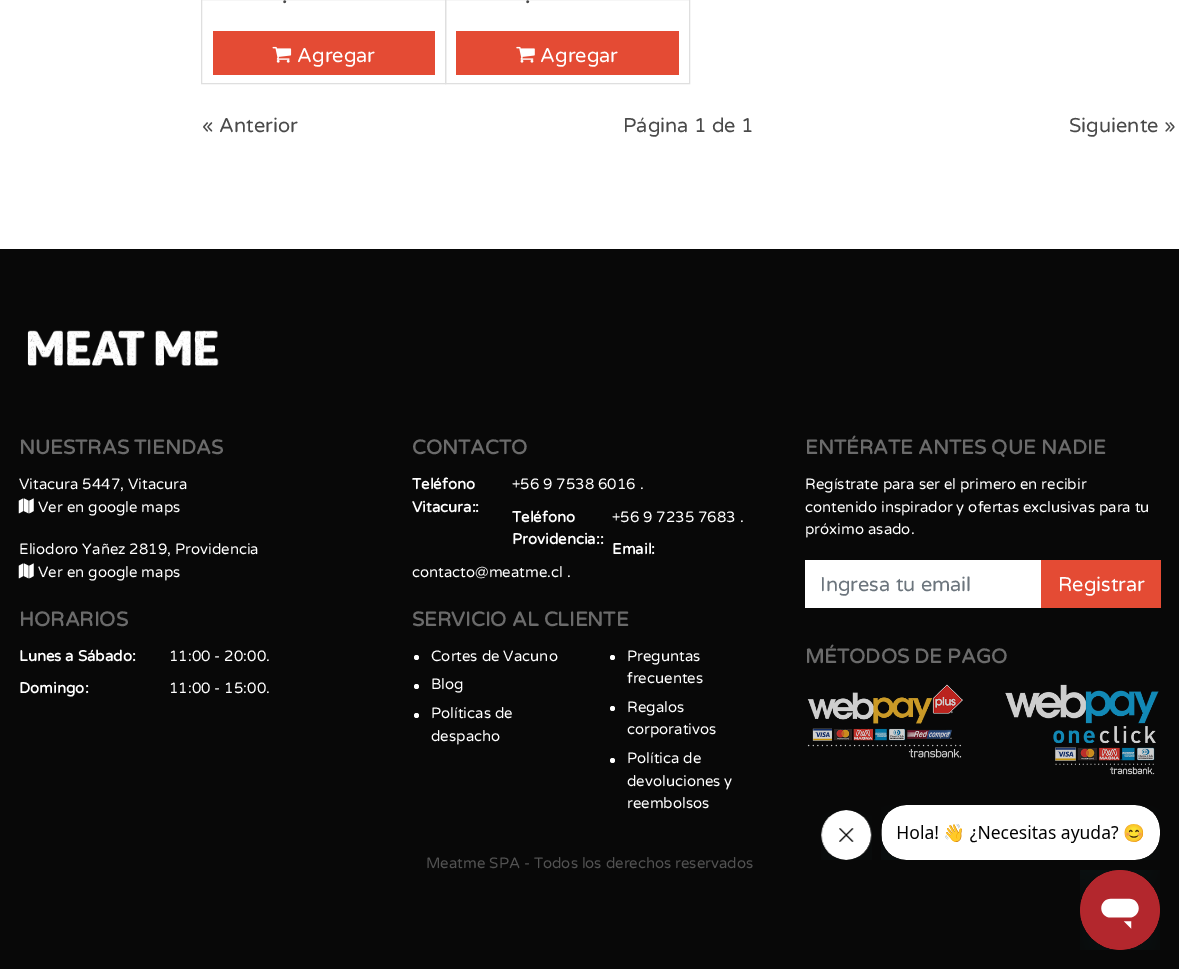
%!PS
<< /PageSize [1179 969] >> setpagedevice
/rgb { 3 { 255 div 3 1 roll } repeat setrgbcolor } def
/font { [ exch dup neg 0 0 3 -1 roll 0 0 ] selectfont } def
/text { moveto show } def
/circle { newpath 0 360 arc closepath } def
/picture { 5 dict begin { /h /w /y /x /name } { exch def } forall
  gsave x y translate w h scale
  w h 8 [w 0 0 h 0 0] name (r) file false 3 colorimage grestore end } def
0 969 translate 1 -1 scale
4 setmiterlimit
255 255 255 rgb
0 0 1179 969 rectfill
223 223 223 rgb
201.5 -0.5 244 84 rectstroke
228 75 52 rgb
213 31 222 44 rectfill
(img_01.rgb) 272 46 20 17 picture
223 223 223 rgb
445.5 -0.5 244 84 rectstroke
228 75 52 rgb
456 31 223 44 rectfill
(img_02.rgb) 516 46 19 17 picture
8 8 8 rgb
0 249 1179 720 rectfill
(img_03.rgb) 27 330 192 36 picture
(img_04.rgb) 18 498 16 16 picture
(img_04.rgb) 18 563 16 16 picture
255 255 255 rgb
416.5 657.5 2.5 circle fill
416.5 686.5 2.5 circle fill
416.5 715.5 2.5 circle fill
612.5 657.5 2.5 circle fill
612.5 708.5 2.5 circle fill
612.5 760.5 2.5 circle fill
805 560 236 48 rectfill
228 75 52 rgb
1041 560 120 48 rectfill
(img_05.rgb) 807 684 156 74 picture
(img_06.rgb) 1005 684 154 91 picture
(img_07.rgb) 821 810 51 50 picture
(img_08.rgb) 881 805 279 55 picture
(img_09.rgb) 1080 870 80 80 picture
/VarelaRound-Bold 19 font
74 74 74 rgb
(.) 282 3 text
/VarelaRound-Regular 20 font
255 255 255 rgb
(Agregar) 297 62 text
/VarelaRound-Bold 19 font
74 74 74 rgb
(.) 525 3 text
/VarelaRound-Regular 20 font
255 255 255 rgb
(Agregar) 540 62 text
74 74 74 rgb
(« Anterior) 202 132 text
(Página 1 de 1) 623 132 text
(Siguiente ») 1069 132 text
/VarelaRound-Bold 20 font
107 107 107 rgb
(NUESTRAS TIENDAS) 19 454 text
/VarelaRound-Regular 15 font
255 255 255 rgb
(Vitacura 5447, Vitacura) 19 489 text
(Ver en google maps) 38 512 text
(Eliodoro Yañez 2819, Providencia) 19 554 text
(Ver en google maps) 38 577 text
/VarelaRound-Bold 20 font
107 107 107 rgb
(HORARIOS) 19 626 text
/VarelaRound-Bold 15 font
255 255 255 rgb
(Lunes a Sábado:) 19 661 text
/VarelaRound-Regular 15 font
(11:00 - 20:00.) 169 661 text
/VarelaRound-Bold 15 font
(Domingo:) 19 693 text
/VarelaRound-Regular 15 font
(11:00 - 15:00.) 169 693 text
/VarelaRound-Bold 20 font
107 107 107 rgb
(CONTACTO) 412 454 text
/VarelaRound-Bold 15 font
255 255 255 rgb
(Teléfono) 412 489 text
(Vitacura::) 412 512 text
/VarelaRound-Regular 15 font
(+56 9 7538 6016 .) 512 489 text
/VarelaRound-Bold 15 font
(Teléfono) 512 522 text
(Providencia::) 512 544 text
/VarelaRound-Regular 15 font
(+56 9 7235 7683 .) 612 522 text
/VarelaRound-Bold 15 font
(Email:) 612 554 text
/VarelaRound-Regular 15 font
(contacto@meatme.cl .) 412 577 text
/VarelaRound-Bold 20 font
107 107 107 rgb
(SERVICIO AL CLIENTE) 412 626 text
/VarelaRound-Regular 15 font
255 255 255 rgb
(Cortes de Vacuno) 431 661 text
(Blog) 431 689 text
(Políticas de) 431 718 text
(despacho) 431 741 text
(Preguntas) 627 661 text
(frecuentes) 627 683 text
(Regalos) 627 712 text
(corporativos) 627 734 text
(Política de) 627 763 text
(devoluciones y) 627 786 text
(reembolsos) 627 808 text
/VarelaRound-Bold 20 font
107 107 107 rgb
(ENTÉRATE ANTES QUE NADIE) 805 454 text
/VarelaRound-Regular 15 font
255 255 255 rgb
(Regístrate para ser el primero en recibir) 805 489 text
(contenido inspirador y ofertas exclusivas para tu) 805 512 text
(próximo asado.) 805 534 text
/VarelaRound-Regular 20 font
108 117 125 rgb
(Ingresa tu email) 820 591 text
255 255 255 rgb
(Registrar) 1058 591 text
/VarelaRound-Bold 20 font
107 107 107 rgb
(MÉTODOS DE PAGO) 805 663 text
/VarelaRound-Regular 15 font
82 82 82 rgb
(Meatme SPA - Todos los derechos reservados) 426 868 text
showpage
